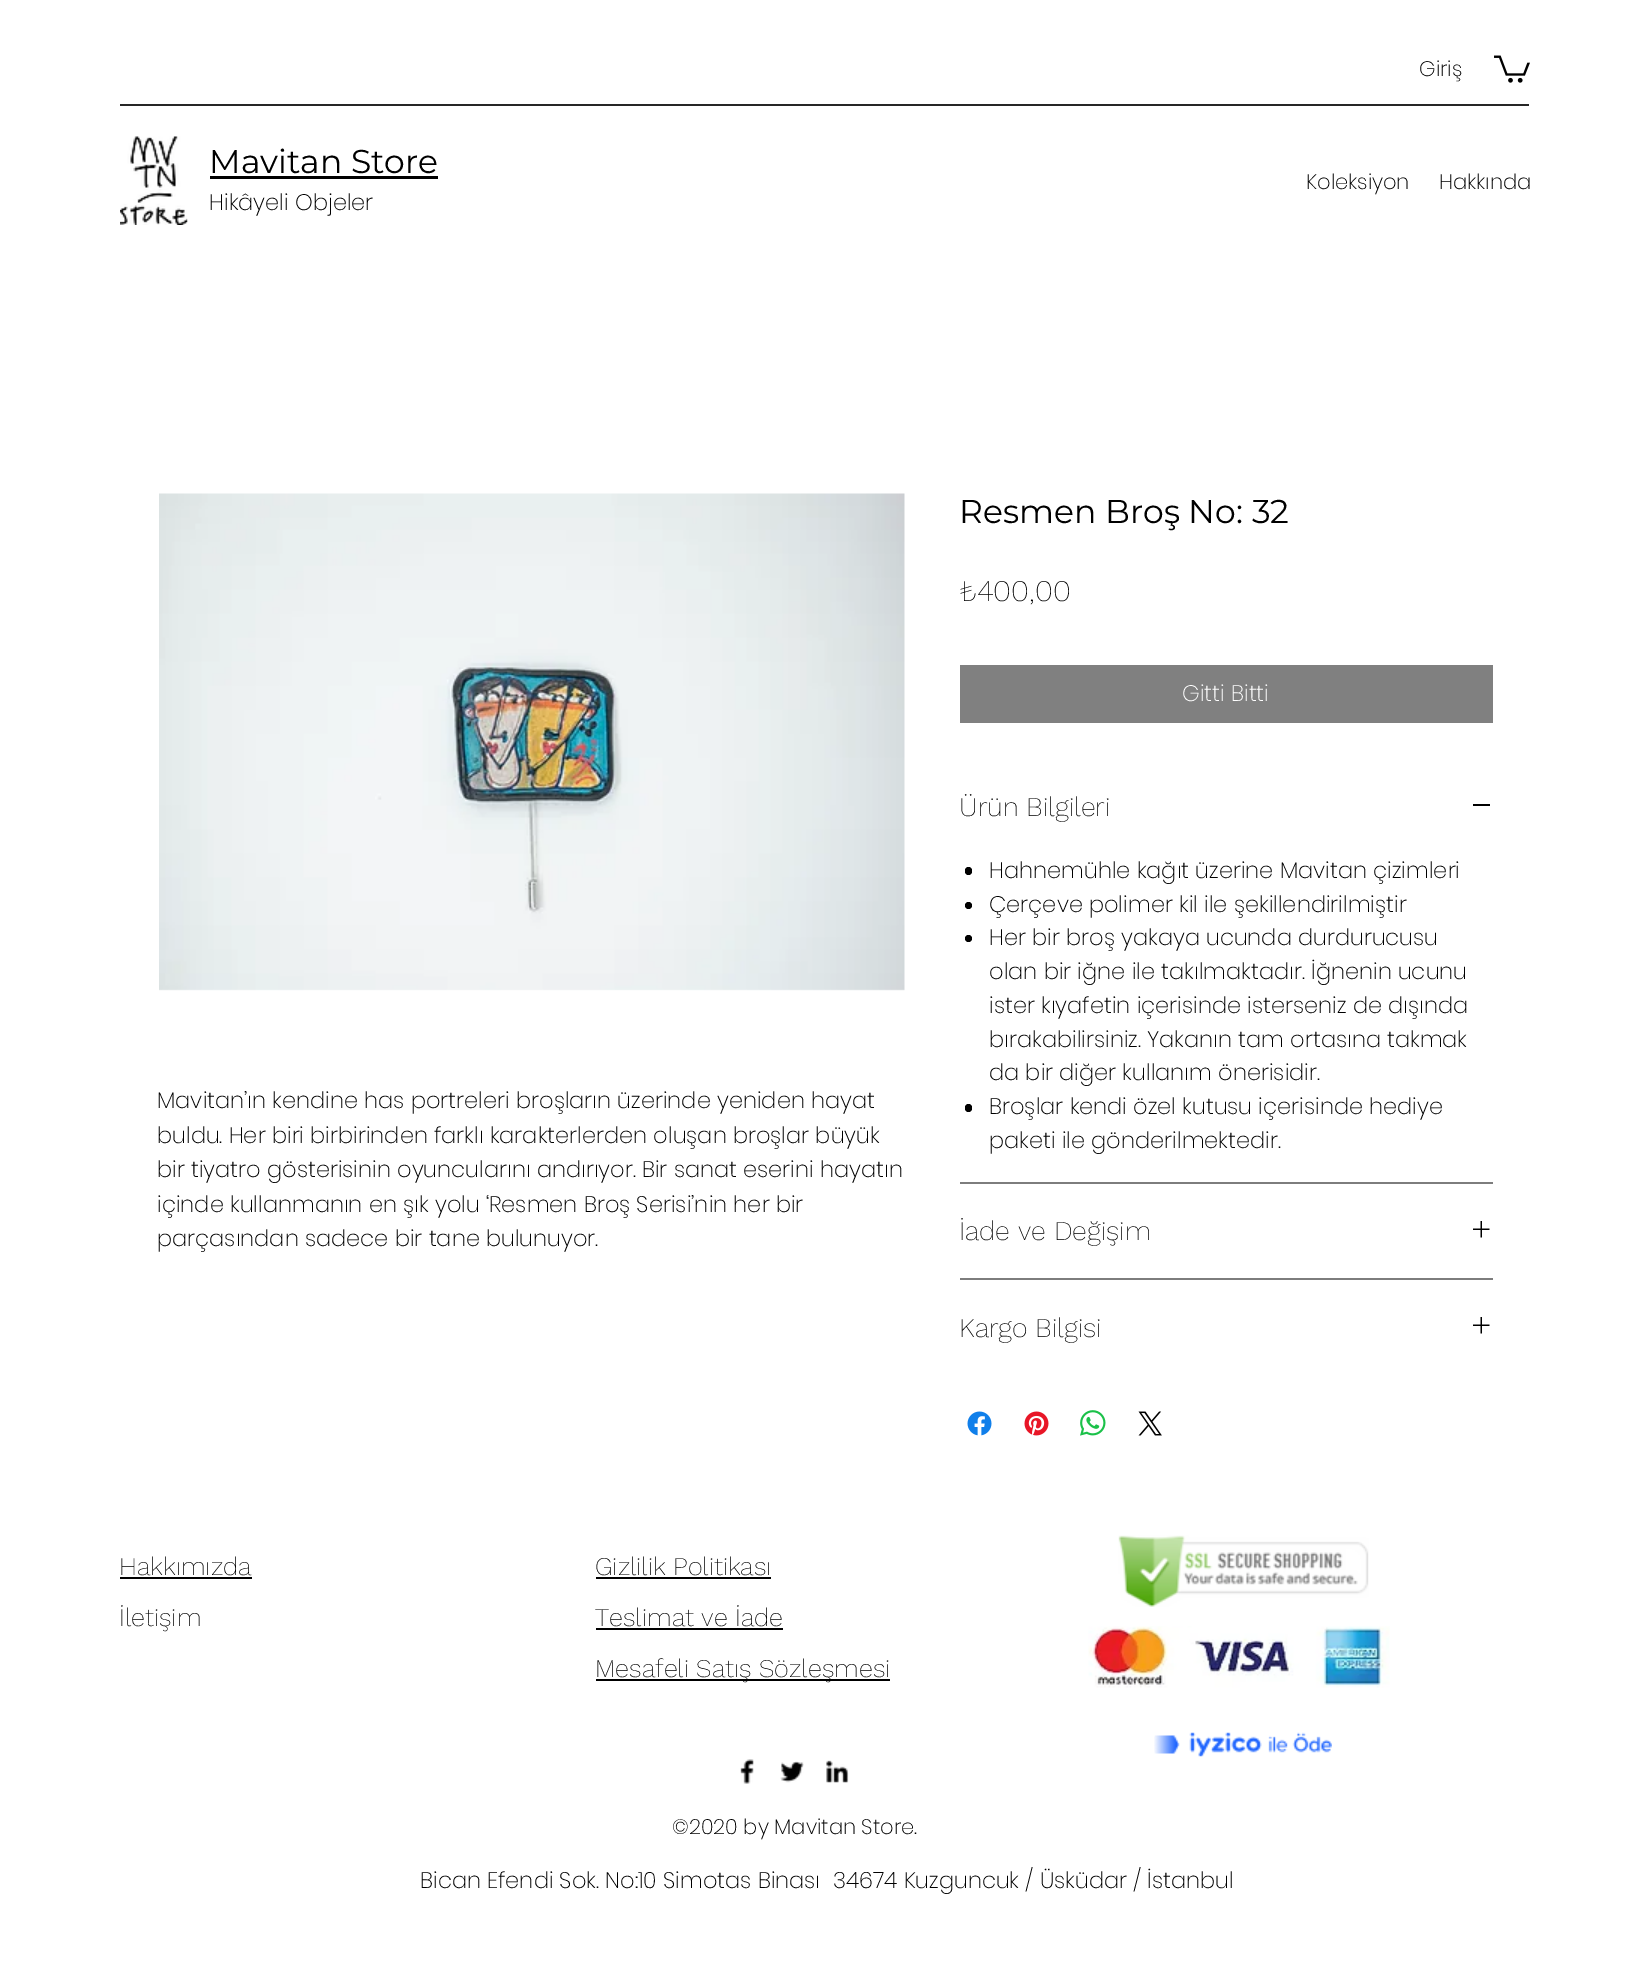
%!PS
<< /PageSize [1648 1974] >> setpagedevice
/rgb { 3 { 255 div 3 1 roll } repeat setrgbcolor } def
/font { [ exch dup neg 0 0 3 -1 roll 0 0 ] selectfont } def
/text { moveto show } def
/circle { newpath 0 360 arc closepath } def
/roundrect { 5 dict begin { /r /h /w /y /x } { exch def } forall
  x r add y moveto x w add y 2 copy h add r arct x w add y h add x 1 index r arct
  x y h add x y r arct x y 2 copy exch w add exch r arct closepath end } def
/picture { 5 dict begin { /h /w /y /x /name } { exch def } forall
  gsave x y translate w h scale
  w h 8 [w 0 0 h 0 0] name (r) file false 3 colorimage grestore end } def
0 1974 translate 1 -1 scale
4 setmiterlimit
255 255 255 rgb
0 0 1648 1974 rectfill
(img_01.rgb) 1494 55 36 28 picture
38 38 38 rgb
120 104 1409 2 rectfill
(img_02.rgb) 120 136 68 89 picture
0 0 0 rgb
210 176 228 3 rectfill
(img_03.rgb) 159 493 746 498 picture
128 128 128 rgb
960 665 533 58 rectfill
125 125 125 rgb
960 1182 533 2 rectfill
0 0 0 rgb
1473 804 17 2 rectfill
965 867 7 8 3.5 roundrect fill
968.5 905.5 3.5 circle fill
968.5 938.5 3.5 circle fill
965 1104 7 8 3.5 roundrect fill
125 125 125 rgb
960 1278 533 2 rectfill
(img_04.rgb) 1473 1221 17 17 picture
(img_04.rgb) 1473 1317 17 17 picture
(img_05.rgb) 967 1411 25 25 picture
(img_06.rgb) 1024 1411 25 25 picture
(img_07.rgb) 1080 1410 26 26 picture
(img_08.rgb) 1138 1411 24 25 picture
0 0 0 rgb
120 1577 132 2 rectfill
596 1577 175 2 rectfill
596 1628 187 2 rectfill
596 1679 294 2 rectfill
(img_09.rgb) 1118 1535 251 72 picture
(img_10.rgb) 1088 1626 302 62 picture
(img_11.rgb) 1154 1732 178 25 picture
(img_12.rgb) 740 1759 14 25 picture
(img_13.rgb) 780 1761 24 22 picture
(img_14.rgb) 826 1760 23 23 picture
/Poppins-ExtraLight 21 font
(Giriş) 1419 76 text
/Montserrat-Regular 33 font
(Mavitan Store) 209 173 text
/Poppins-ExtraLight 22.5 font
(Hikâyeli Objeler) 209 210 text
/Poppins-ExtraLight 21 font
(Koleksiyon) 1306 189 text
(Hakkında) 1439 189 text
/Poppins-ExtraLight 22.5 font
(Mavitan’ın kendine has portreleri broşların üzerinde yeniden hayat) 157 1108 text
(buldu. Her biri birbirinden farklı karakterlerden oluşan broşlar büyük) 157 1143 text
(bir tiyatro gösterisinin oyuncularını andırıyor. Bir sanat eserini hayatın) 157 1177 text
(içinde kullanmanın en şık yolu ‘Resmen Broş Serisi’nin her bir) 157 1212 text
(parçasından sadece bir tane bulunuyor.) 157 1246 text
/Montserrat-Regular 33 font
(Resmen Broş No: 32) 959 523 text
/WorkSans-ExtraLight 30 font
(₺400,00) 959 601 text
/Poppins-ExtraLight 22.5 font
255 255 255 rgb
(Gitti Bitti) 1182 701 text
/WorkSans-ExtraLight 27 font
0 0 0 rgb
(Ürün Bilgileri) 959 816 text
/Poppins-ExtraLight 22.5 font
(Hahnemühle kağıt üzerine Mavitan çizimleri) 989 878 text
(Çerçeve polimer kil ile şekillendirilmiştir) 989 912 text
(Her bir broş yakaya ucunda durdurucusu) 989 945 text
(olan bir iğne ile takılmaktadır. İğnenin ucunu) 989 979 text
(ister kıyafetin içerisinde isterseniz de dışında) 989 1013 text
(bırakabilirsiniz. Yakanın tam ortasına takmak) 989 1047 text
(da bir diğer kullanım önerisidir.) 989 1080 text
(Broşlar kendi özel kutusu içerisinde hediye) 989 1114 text
(paketi ile gönderilmektedir.) 989 1148 text
/WorkSans-ExtraLight 27 font
(İade ve Değişim) 959 1240 text
(Kargo Bilgisi) 959 1337 text
/WorkSans-ExtraLight 25.5 font
(Hakkımızda) 119 1575 text
(İletişim) 119 1626 text
(Gizlilik Politikası) 595 1575 text
(Teslimat ve İade) 595 1626 text
(Mesafeli Satış Sözleşmesi) 595 1677 text
/Poppins-ExtraLight 21 font
(©2020 by Mavitan Store.) 672 1834 text
/Poppins-ExtraLight 22.5 font
(Bican Efendi Sok. No:10 Simotas Binası  34674 Kuzguncuk / Üsküdar / İstanbul) 420 1888 text
showpage
